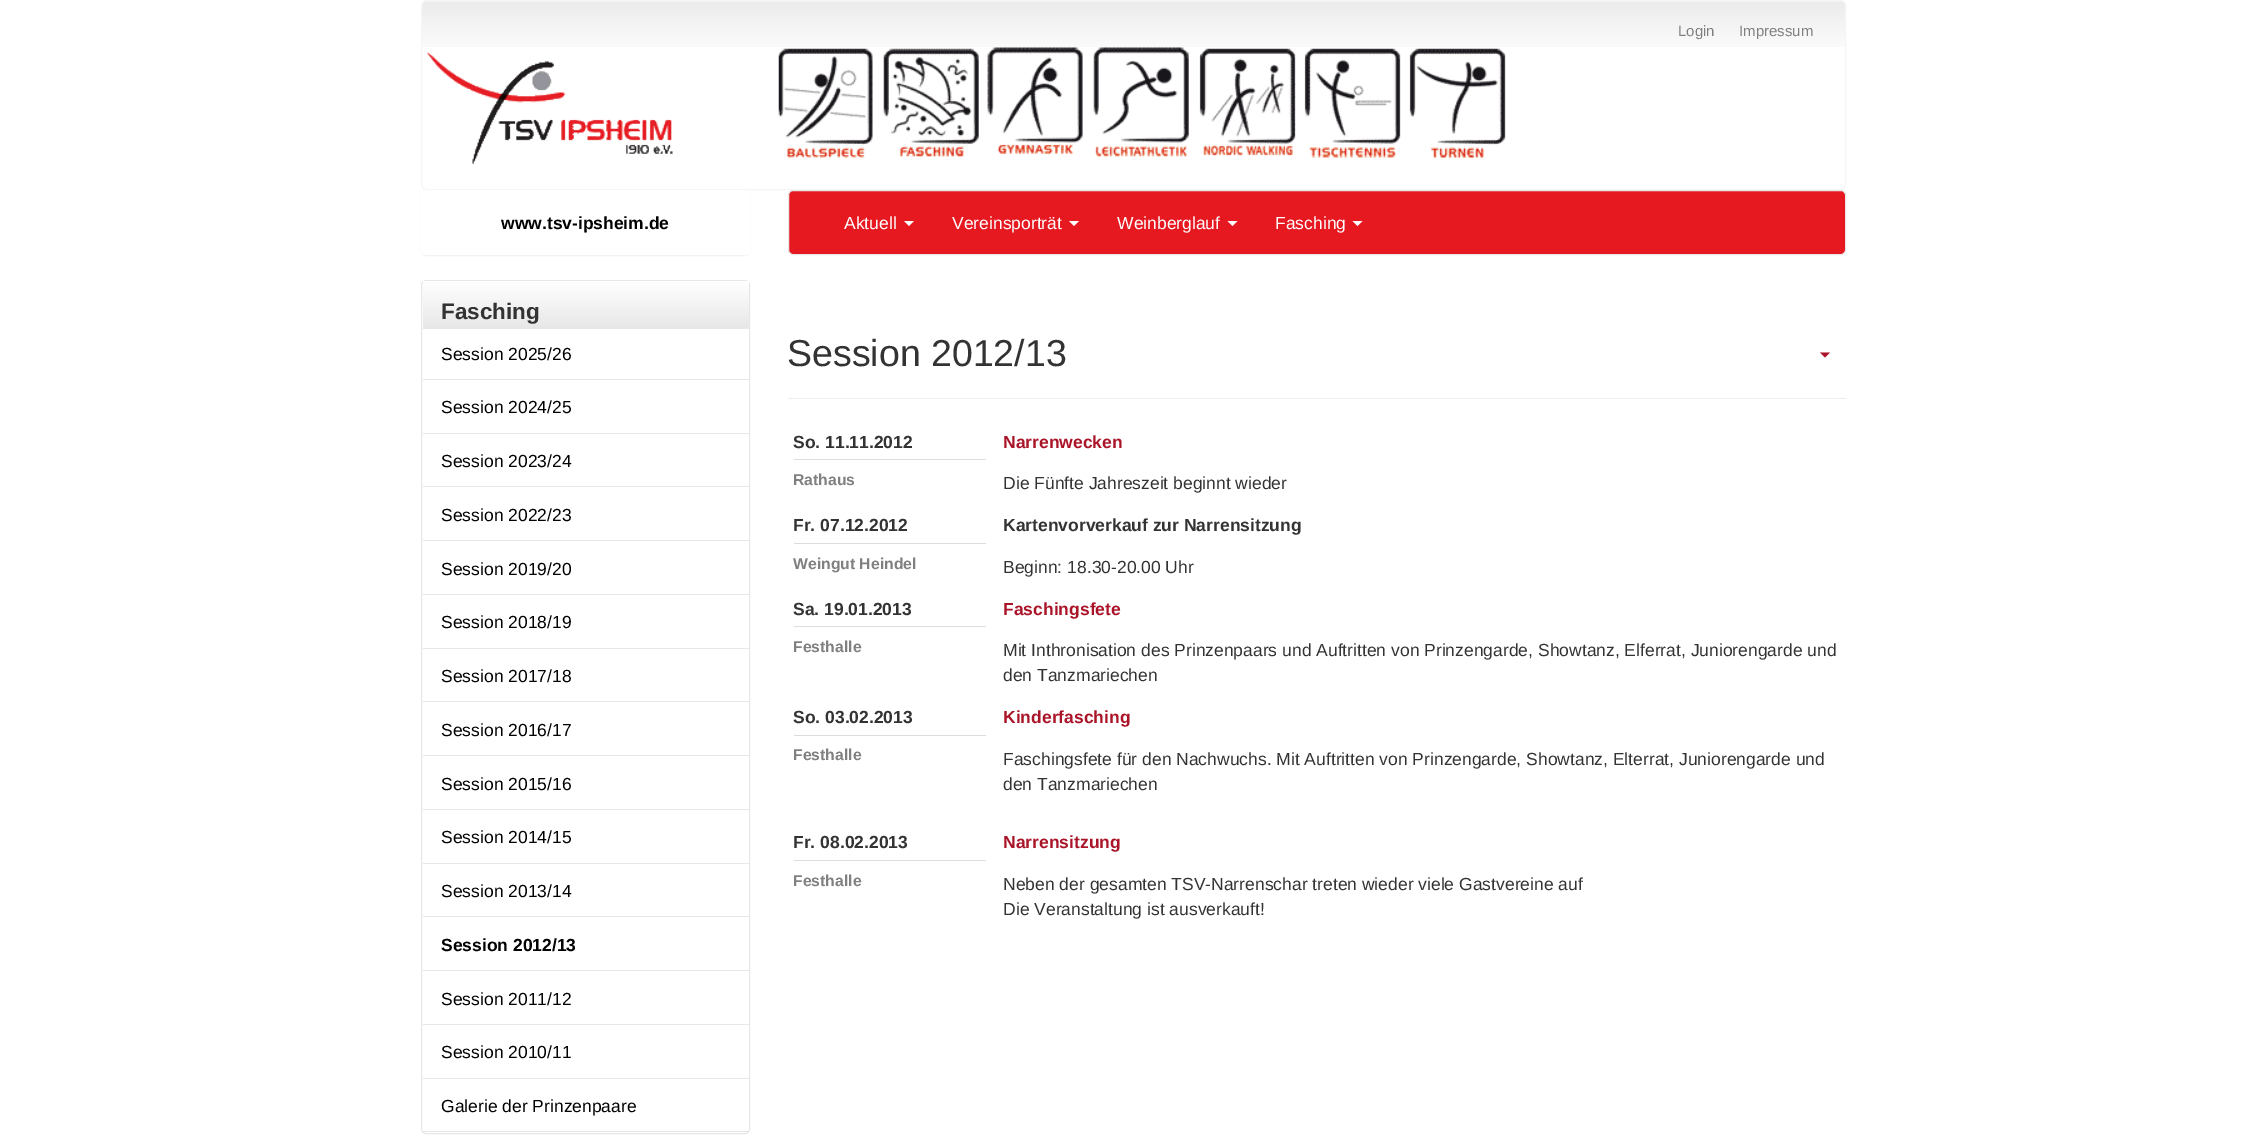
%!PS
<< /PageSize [2267 1147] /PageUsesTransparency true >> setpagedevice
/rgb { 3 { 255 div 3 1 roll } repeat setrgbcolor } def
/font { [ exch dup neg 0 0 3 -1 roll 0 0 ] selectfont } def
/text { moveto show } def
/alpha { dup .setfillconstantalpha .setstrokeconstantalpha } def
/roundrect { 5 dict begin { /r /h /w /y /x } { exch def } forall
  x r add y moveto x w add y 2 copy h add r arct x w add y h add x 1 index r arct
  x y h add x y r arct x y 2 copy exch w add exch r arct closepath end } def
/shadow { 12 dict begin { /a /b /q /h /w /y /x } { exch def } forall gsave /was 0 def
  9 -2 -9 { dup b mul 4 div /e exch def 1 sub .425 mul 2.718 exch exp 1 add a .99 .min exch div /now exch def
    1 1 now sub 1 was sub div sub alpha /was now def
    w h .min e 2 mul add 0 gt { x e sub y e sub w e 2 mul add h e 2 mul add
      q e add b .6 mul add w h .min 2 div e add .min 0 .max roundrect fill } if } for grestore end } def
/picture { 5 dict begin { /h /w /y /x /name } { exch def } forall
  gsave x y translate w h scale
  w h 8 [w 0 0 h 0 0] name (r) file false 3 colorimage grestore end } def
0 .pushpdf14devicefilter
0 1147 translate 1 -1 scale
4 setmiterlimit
255 255 255 rgb
0 0 2267 1147 rectfill
(img_01.rgb) 421 1 1425 46 picture
245 245 245 rgb
421.5 0.5 1424 189 5.5 roundrect stroke
(img_02.rgb) 427 52 246 112 picture
(img_03.rgb) 778 47 728 111 picture
0 0 0 rgb
421 191 329 65 5 0.5 0.05 shadow
255 255 255 rgb
421 190 329 65 5 roundrect fill
231 231 231 rgb
421.5 280.5 328 853 4.5 roundrect stroke
gsave 423 281 moveto 326 0 rlineto 0 48 rlineto -326 0 rlineto closepath clip newpath
<< /ShadingType 2 /ColorSpace /DeviceRGB /Coords [586 281 586 329] /Extend [true true] /Function << /FunctionType 2 /Domain [0 1] /C0 [1 1 1] /C1 [0.906 0.906 0.91] /N 1 >> >> shfill grestore
231 231 232 rgb
423 379 326 1 rectfill
423 433 326 1 rectfill
423 486 326 1 rectfill
423 540 326 1 rectfill
423 594 326 1 rectfill
423 648 326 1 rectfill
423 701 326 1 rectfill
423 755 326 1 rectfill
423 809 326 1 rectfill
423 863 326 1 rectfill
423 916 326 1 rectfill
423 970 326 1 rectfill
423 1024 326 1 rectfill
423 1078 326 1 rectfill
423 1131 326 1 rectfill
230 25 33 rgb
788.5 190.5 1057 64 4.5 roundrect gsave fill grestore
231 231 231 rgb
stroke
255 255 255 rgb
904 221 moveto 10 0 rlineto -5 5 rlineto closepath fill
1069 221 moveto 10 0 rlineto -5 5 rlineto closepath fill
1227.5 221 moveto 10 0 rlineto -5 5 rlineto closepath fill
1352.5 221 moveto 10 0 rlineto -5 5 rlineto closepath fill
238 238 238 rgb
788 398 1058 1 rectfill
170 20 40 rgb
1820 352.5 moveto 10 0 rlineto -5 5 rlineto closepath fill
221 221 221 rgb
794 459 192 1 rectfill
794 543 192 1 rectfill
794 626 192 1 rectfill
794 735 192 1 rectfill
794 860 192 1 rectfill
/LiberationSans-Regular 15 font
128 128 128 rgb
(Login) 1678 36 text
(Impressum) 1739 36 text
/LiberationSans-Bold 17.5 font
0 0 0 rgb
(www.tsv-ipsheim.de) 501 229 text
/LiberationSans-Bold 22.5 font
51 51 51 rgb
(Fasching) 441 319 text
/LiberationSans-Regular 17.5 font
0 0 0 rgb
(Session 2025/26) 441 360 text
(Session 2024/25) 441 413 text
(Session 2023/24) 441 467 text
(Session 2022/23) 441 521 text
(Session 2019/20) 441 575 text
(Session 2018/19) 441 628 text
(Session 2017/18) 441 682 text
(Session 2016/17) 441 736 text
(Session 2015/16) 441 790 text
(Session 2014/15) 441 843 text
(Session 2013/14) 441 897 text
/LiberationSans-Bold 17.5 font
(Session 2012/13) 441 951 text
/LiberationSans-Regular 17.5 font
(Session 2011/12) 441 1005 text
(Session 2010/11) 441 1058 text
(Galerie der Prinzenpaare) 441 1112 text
255 255 255 rgb
(Aktuell) 844 229 text
(Vereinsporträt) 952 229 text
(Weinberglauf) 1117 229 text
(Fasching) 1275 229 text
/LiberationSans-Regular 37.5 font
51 51 51 rgb
(Session 2012/13) 787 366 text
/LiberationSans-Bold 17.5 font
(So. 11.11.2012) 793 448 text
170 20 40 rgb
(Narrenwecken) 1003 448 text
/LiberationSans-Bold 15.75 font
128 128 128 rgb
(Rathaus) 793 485 text
/LiberationSans-Regular 17.5 font
51 51 51 rgb
(Die Fünfte Jahreszeit beginnt wieder) 1003 489 text
/LiberationSans-Bold 17.5 font
(Fr. 07.12.2012) 793 531 text
(Kartenvorverkauf zur Narrensitzung) 1003 531 text
/LiberationSans-Bold 15.75 font
128 128 128 rgb
(Weingut Heindel) 793 569 text
/LiberationSans-Regular 17.5 font
51 51 51 rgb
(Beginn: 18.30-20.00 Uhr) 1003 573 text
/LiberationSans-Bold 17.5 font
(Sa. 19.01.2013) 793 615 text
170 20 40 rgb
(Faschingsfete) 1003 615 text
/LiberationSans-Bold 15.75 font
128 128 128 rgb
(Festhalle) 793 652 text
/LiberationSans-Regular 17.5 font
51 51 51 rgb
(Mit Inthronisation des Prinzenpaars und Auftritten von Prinzengarde, Showtanz, Elferrat, Juniorengarde und) 1003 656 text
(den Tanzmariechen) 1003 681 text
/LiberationSans-Bold 17.5 font
(So. 03.02.2013) 793 723 text
170 20 40 rgb
(Kinderfasching) 1003 723 text
/LiberationSans-Bold 15.75 font
128 128 128 rgb
(Festhalle) 793 760 text
/LiberationSans-Regular 17.5 font
51 51 51 rgb
(Faschingsfete für den Nachwuchs. Mit Auftritten von Prinzengarde, Showtanz, Elterrat, Juniorengarde und) 1003 765 text
(den Tanzmariechen) 1003 790 text
/LiberationSans-Bold 17.5 font
(Fr. 08.02.2013) 793 848 text
170 20 40 rgb
(Narrensitzung) 1003 848 text
/LiberationSans-Bold 15.75 font
128 128 128 rgb
(Festhalle) 793 886 text
/LiberationSans-Regular 17.5 font
51 51 51 rgb
(Neben der gesamten TSV-Narrenschar treten wieder viele Gastvereine auf) 1003 890 text
(Die Veranstaltung ist ausverkauft!) 1003 915 text
.poppdf14devicefilter showpage
